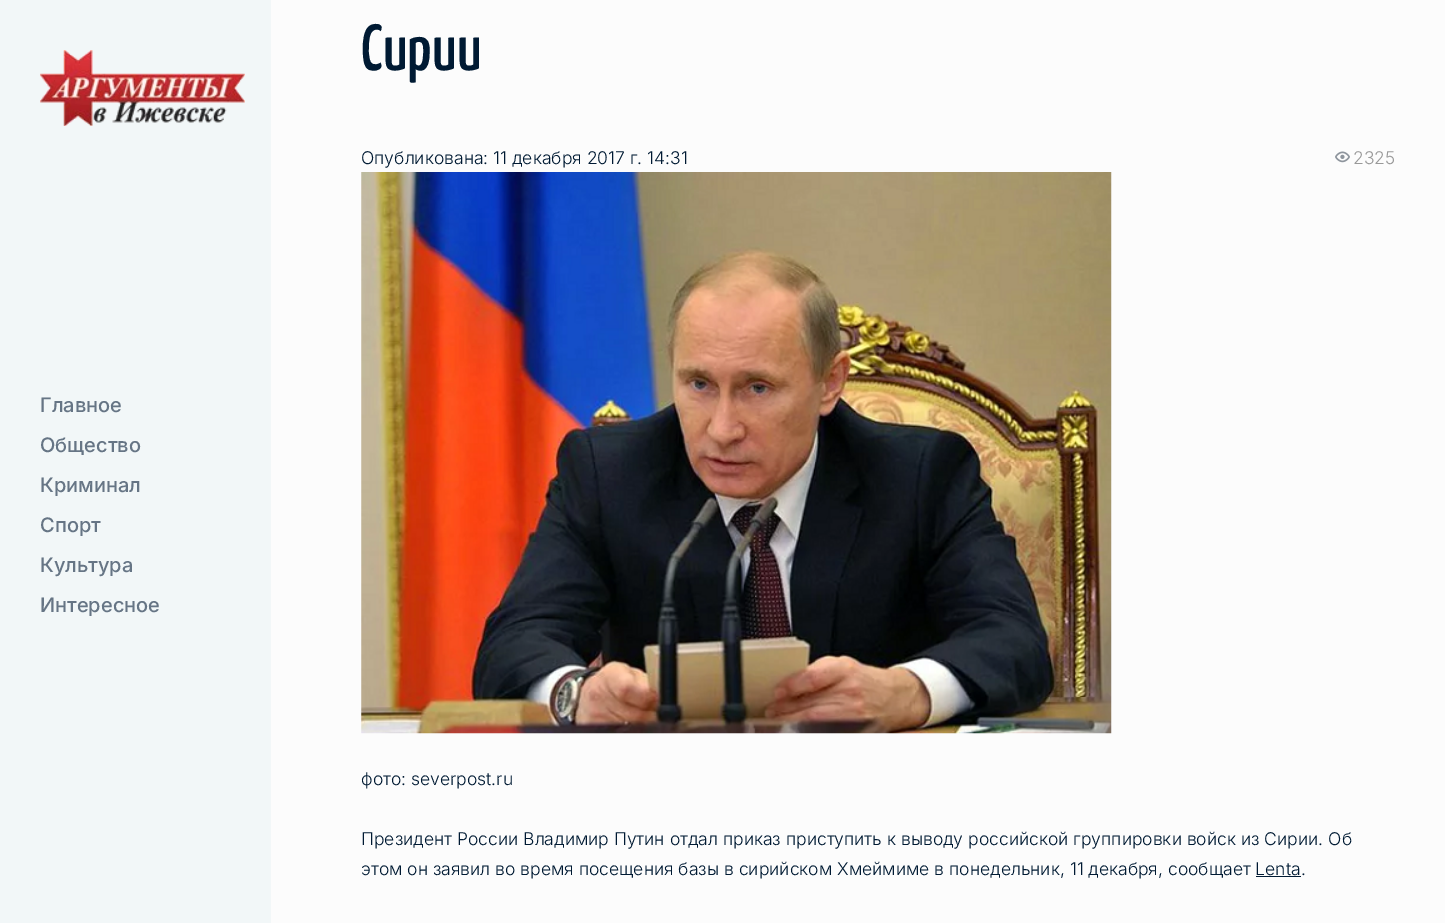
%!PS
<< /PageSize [1445 923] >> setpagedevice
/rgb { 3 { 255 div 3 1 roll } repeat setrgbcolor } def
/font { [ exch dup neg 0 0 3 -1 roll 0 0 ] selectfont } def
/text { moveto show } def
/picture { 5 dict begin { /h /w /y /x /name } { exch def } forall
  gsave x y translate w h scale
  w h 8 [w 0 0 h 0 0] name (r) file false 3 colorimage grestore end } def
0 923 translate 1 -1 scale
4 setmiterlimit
252 252 252 rgb
0 0 1445 923 rectfill
242 247 248 rgb
0 0 271 923 rectfill
(img_01.rgb) 40 50 205 76 picture
(img_02.rgb) 1335 151 15 12 picture
(img_03.rgb) 361 172 751 562 picture
0 26 51 rgb
1256 876 45 1 rectfill
/Inter-Medium 20 font
102 117 133 rgb
(Главное) 40 412 text
(Общество) 40 452 text
(Криминал) 40 492 text
(Спорт) 40 532 text
(Культура) 40 572 text
(Интересное) 40 612 text
/YanoneKaffeesatz-ExtraLight 65 font
0 26 51 rgb
(Сирии) 361 70 text
/Inter-Light 17.5 font
(Опубликована: 11 декабря 2017 г. 14:31) 361 164 text
153 153 153 rgb
(2325) 1353 164 text
0 26 51 rgb
(фото: severpost.ru) 361 785 text
(Президент России Владимир Путин отдал приказ приступить к выводу российской группировки войск из Сирии. Об) 361 845 text
(этом он заявил во время посещения базы в сирийском Хмеймиме в понедельник, 11 декабря, сообщает Lenta.) 361 875 text
showpage
